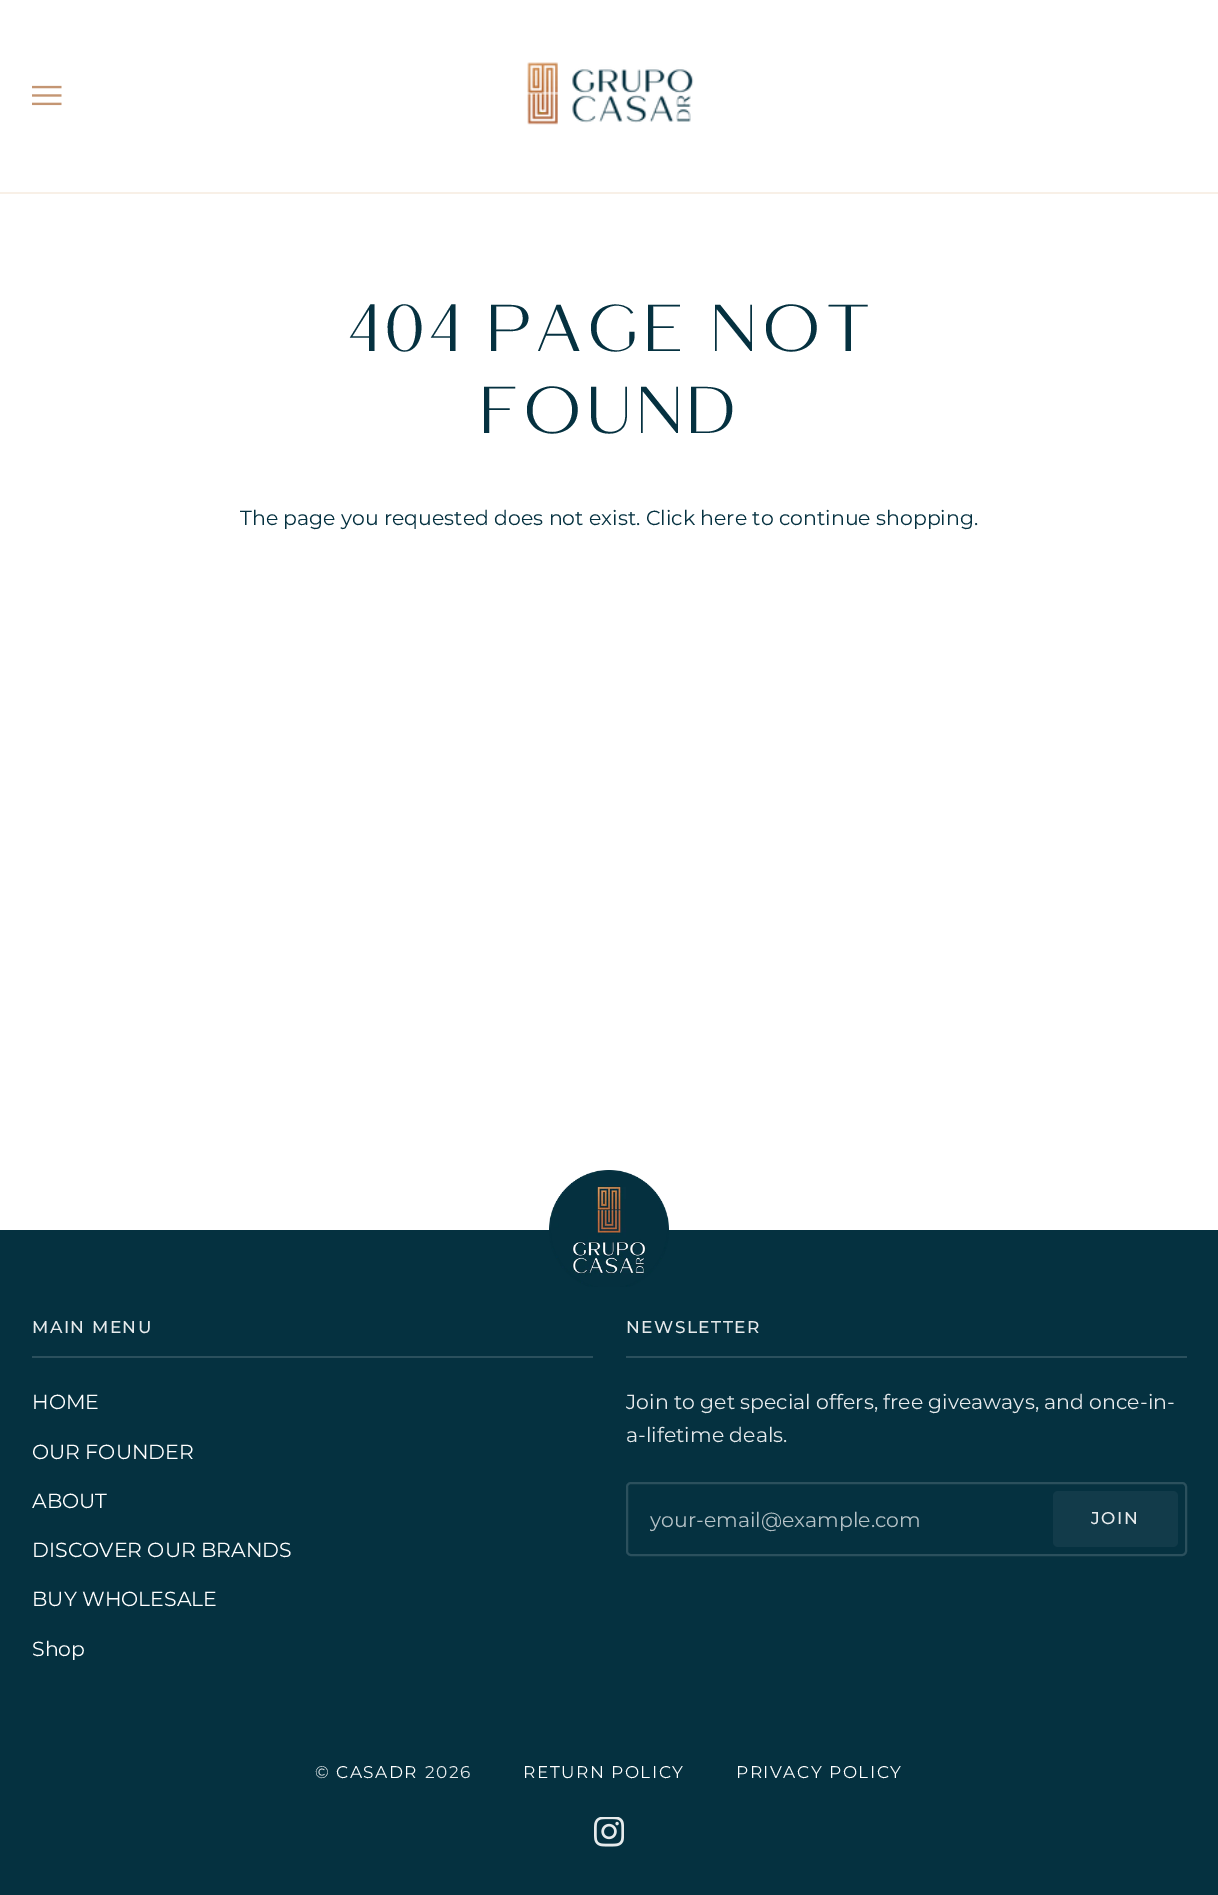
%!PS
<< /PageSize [1218 1895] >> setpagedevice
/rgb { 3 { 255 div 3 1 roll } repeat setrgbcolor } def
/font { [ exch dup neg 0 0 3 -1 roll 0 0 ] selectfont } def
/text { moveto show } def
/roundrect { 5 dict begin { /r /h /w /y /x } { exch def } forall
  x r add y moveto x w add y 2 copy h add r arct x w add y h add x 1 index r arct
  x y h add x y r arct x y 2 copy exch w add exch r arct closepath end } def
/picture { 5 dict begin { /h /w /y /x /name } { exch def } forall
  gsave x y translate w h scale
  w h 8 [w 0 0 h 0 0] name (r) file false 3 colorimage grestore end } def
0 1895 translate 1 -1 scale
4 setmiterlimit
255 255 255 rgb
0 0 1218 1895 rectfill
248 240 231 rgb
0 192 1218 2 rectfill
(img_01.rgb) 32 85 30 21 picture
(img_02.rgb) 527 62 167 63 picture
5 49 64 rgb
0 1230 1218 665 rectfill
(img_03.rgb) 549 1170 120 117 picture
43 80 93 rgb
32 1356 561 2 rectfill
626 1356 561 2 rectfill
2 setlinewidth
627 1483 559 72 4 roundrect stroke
18 59 74 rgb
1053 1491 125 56 5 roundrect fill
(img_04.rgb) 594 1817 30 30 picture
/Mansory-Regular 66 font
5 49 64 rgb
345 351 moveto 1.5 0 (404 PAGE NOT) ashow
478 433 moveto 1.5 0 (FOUND) ashow
/Montserrat-Regular 20.45 font
(The page you requested does not exist. Click here to continue shopping.) 240 525 text
/Montserrat-Medium 17 font
230 234 236 rgb
32 1333 moveto 1.5 0 (MAIN MENU) ashow
/Montserrat-Regular 20.45 font
255 255 255 rgb
(HOME) 32 1409 text
(OUR FOUNDER) 32 1459 text
(ABOUT) 32 1508 text
(DISCOVER OUR BRANDS) 32 1557 text
(BUY WHOLESALE) 32 1606 text
(Shop) 32 1656 text
/Montserrat-Medium 17 font
230 234 236 rgb
626 1333 moveto 1.5 0 (NEWSLETTER) ashow
/Montserrat-Regular 20.45 font
(Join to get special offers, free giveaways, and once-in-) 626 1409 text
(a-lifetime deals.) 626 1442 text
gsave
650 1508 388 24 rectclip
180 193 198 rgb
(your-email@example.com) 650 1527 text
grestore
/Montserrat-Medium 17 font
1091 1524 moveto 1.5 0 (JOIN) ashow
/Montserrat-Regular 17 font
315 1778 moveto 1.5 0 (©) ashow
255 255 255 rgb
336 1778 moveto 1.5 0 (CASADR) ashow
230 234 236 rgb
425 1778 moveto 1.5 0 (2026) ashow
255 255 255 rgb
523 1778 moveto 1.5 0 (RETURN POLICY) ashow
736 1778 moveto 1.5 0 (PRIVACY POLICY) ashow
showpage
